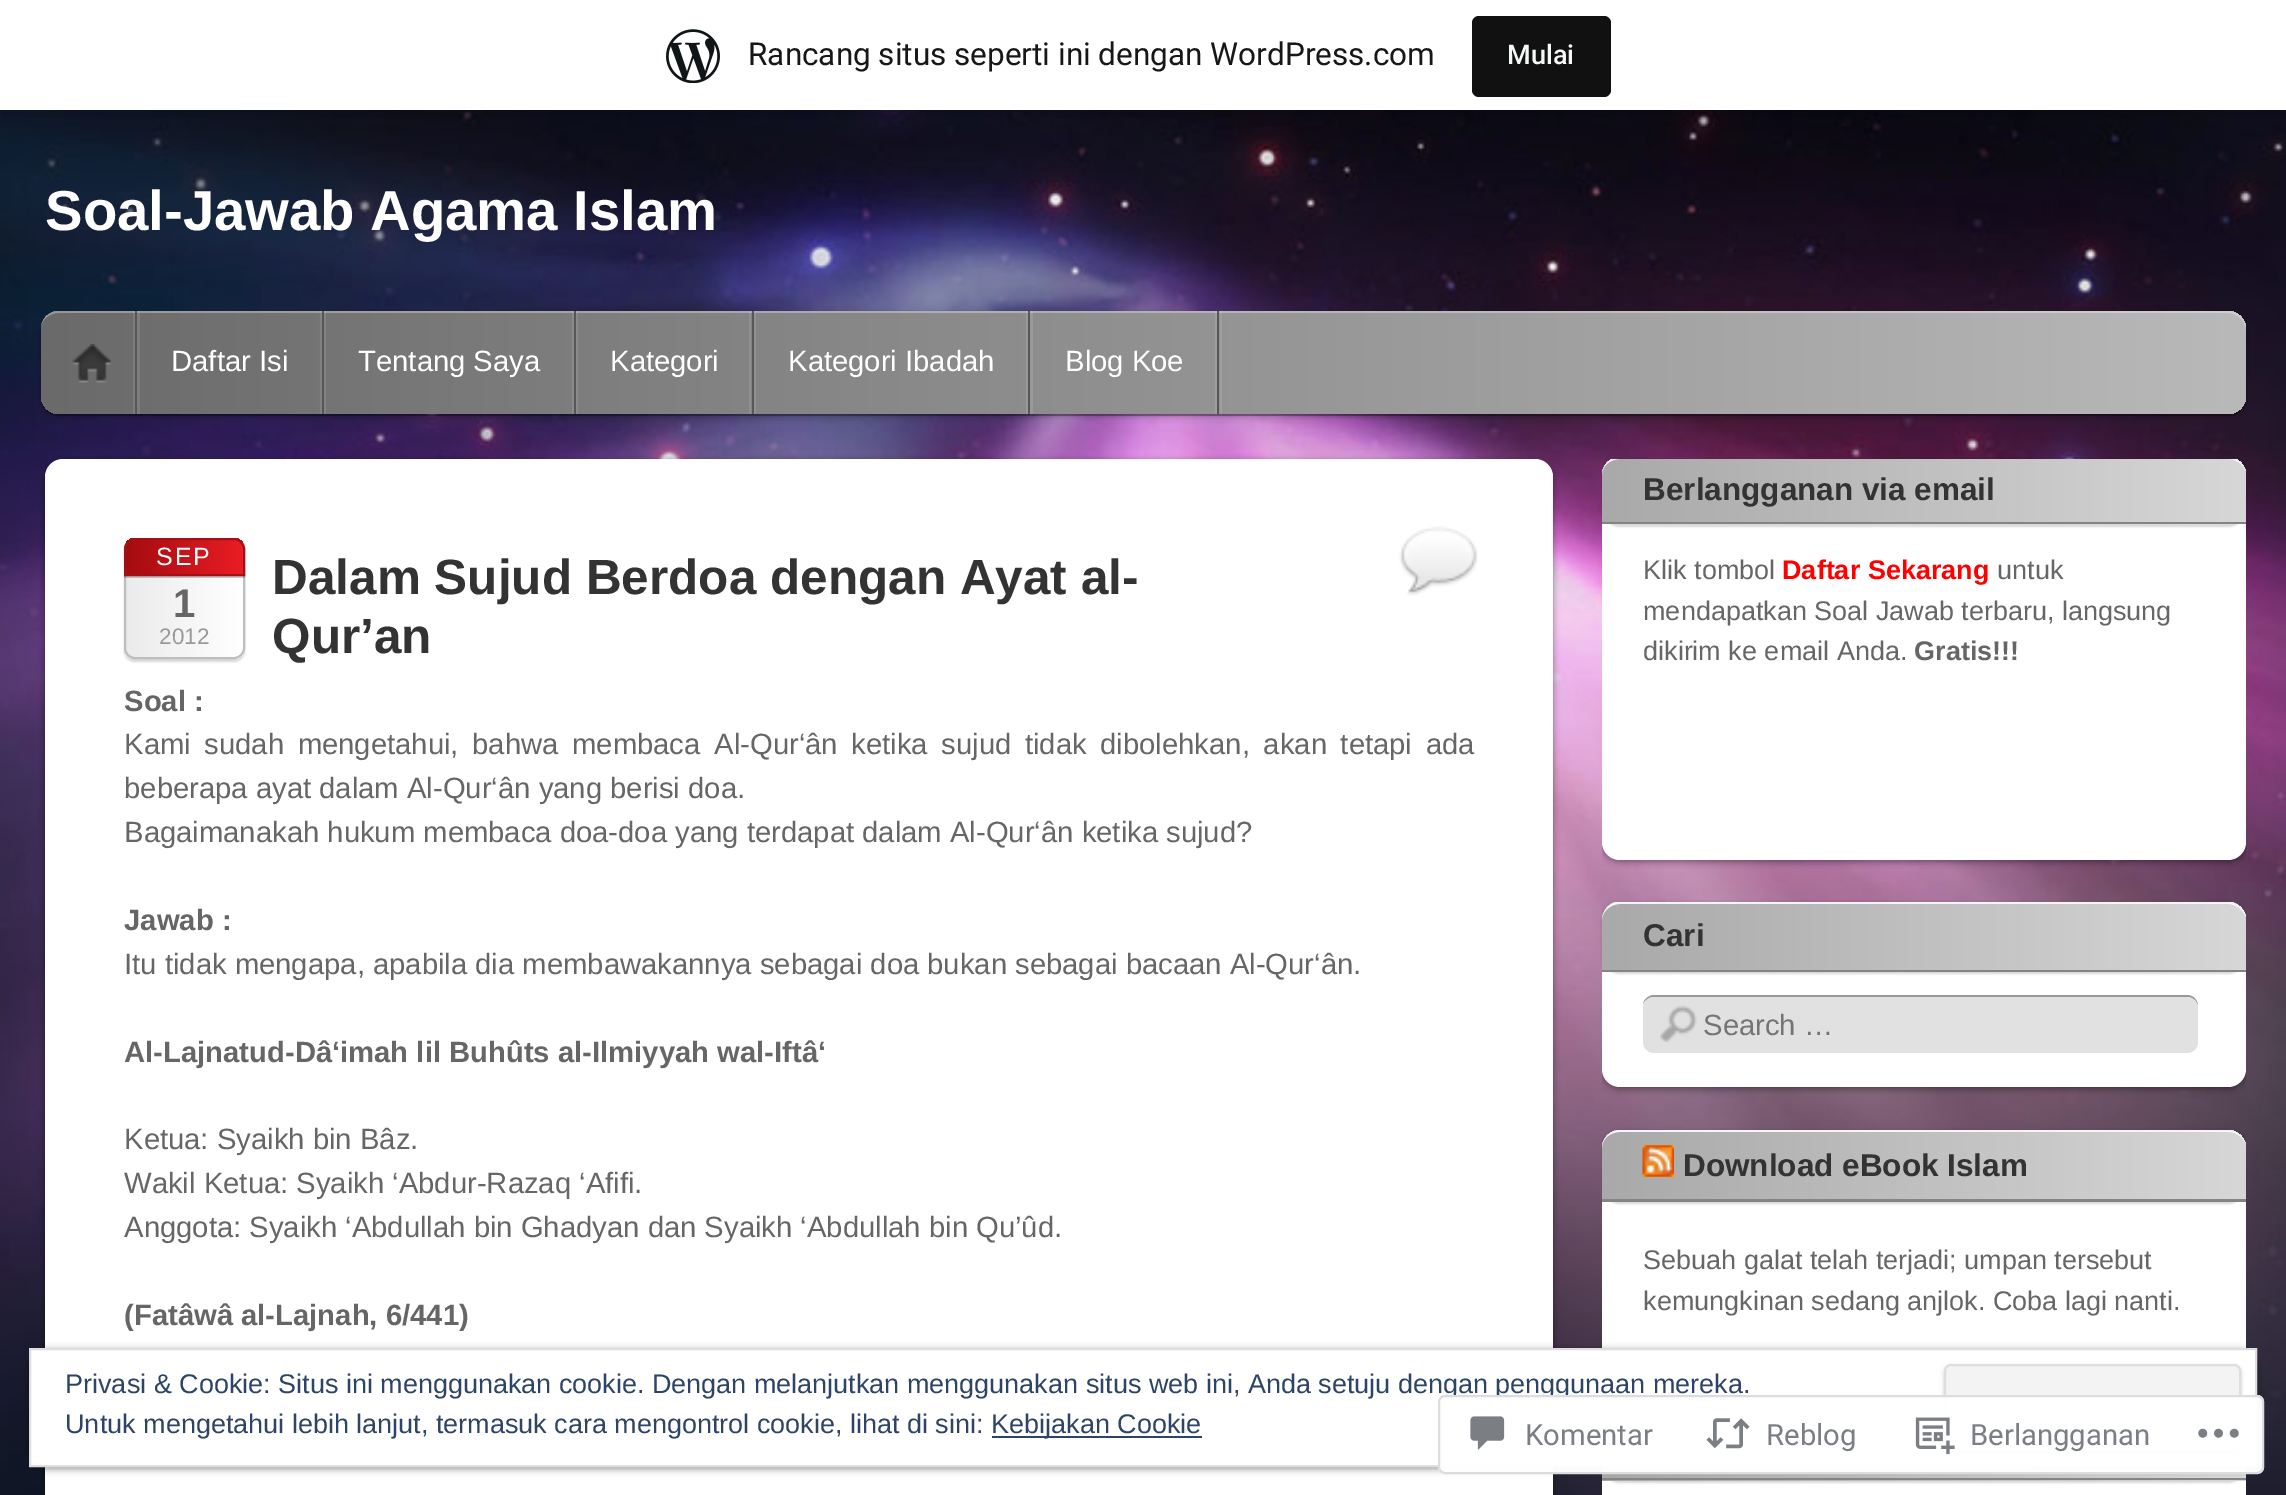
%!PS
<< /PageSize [2286 1495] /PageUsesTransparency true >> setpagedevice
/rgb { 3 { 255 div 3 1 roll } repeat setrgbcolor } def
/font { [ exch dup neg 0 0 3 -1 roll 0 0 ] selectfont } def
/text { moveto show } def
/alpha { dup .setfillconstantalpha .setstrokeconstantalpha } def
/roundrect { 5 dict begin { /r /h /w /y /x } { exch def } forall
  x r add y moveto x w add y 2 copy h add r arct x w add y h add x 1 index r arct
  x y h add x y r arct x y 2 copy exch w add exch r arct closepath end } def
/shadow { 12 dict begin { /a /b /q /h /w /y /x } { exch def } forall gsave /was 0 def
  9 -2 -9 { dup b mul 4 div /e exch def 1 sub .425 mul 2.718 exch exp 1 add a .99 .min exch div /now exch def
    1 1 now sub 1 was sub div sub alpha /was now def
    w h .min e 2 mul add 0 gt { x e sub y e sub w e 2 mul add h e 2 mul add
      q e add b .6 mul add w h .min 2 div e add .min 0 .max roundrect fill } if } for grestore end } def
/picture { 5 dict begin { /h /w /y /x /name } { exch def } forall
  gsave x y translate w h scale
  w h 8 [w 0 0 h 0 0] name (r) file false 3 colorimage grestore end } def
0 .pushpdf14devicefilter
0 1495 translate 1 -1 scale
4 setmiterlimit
255 255 255 rgb
0 0 2286 1495 rectfill
(img_01.rgb) 0 110 2286 1385 picture
0 0 0 rgb
0 2 2286 111 0 2 0.05 shadow
0.08 alpha
2 110 moveto 0 7 rlineto 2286 0 rlineto 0 -110 rlineto -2 0 rlineto 0 103 rlineto closepath fill
1 alpha
255 255 255 rgb
0 0 2286 110 rectfill
(img_02.rgb) 666 29 54 54 picture
17 17 17 rgb
1472 16 139 81 7 roundrect fill
0 0 0 rgb
41 313 2205 103 18 3.5 0.3 shadow
0.3 alpha
41 401 moveto 2 9 9 15 18 15 rcurveto 2169 0 rlineto 10 0 18 -8 18 -18 rcurveto 0 -67 rlineto -1 -5 rlineto 1 70 rlineto 0 10 -9 18 -18 18 rcurveto -2170 0 rlineto -8 0 -14 -5 -17 -13 rcurveto closepath fill
1 alpha
gsave 41 311 2205 103 18 roundrect clip newpath
<< /ShadingType 2 /ColorSpace /DeviceRGB /Coords [2246 362 41 362] /Extend [true true] /Function << /FunctionType 2 /Domain [0 1] /C0 [0.725 0.725 0.725] /C1 [0.416 0.416 0.416] /N 1 >> >> shfill grestore
0.3 alpha
255 255 255 rgb
58 313 moveto 2170 0 rlineto 9 0 18 8 18 18 rcurveto 0 -2 rlineto 0 -10 -8 -18 -18 -18 rcurveto -2169 0 rlineto -8 0 -15 5 -17 12 rcurveto 3 -6 10 -10 16 -10 rcurveto closepath fill
0.1 alpha
137 311 3 103 rectfill
133 311 2 103 rectfill
1 alpha
87 87 87 rgb
135 311 2 103 rectfill
(img_03.rgb) 72 344 40 39 picture
0.1 alpha
255 255 255 rgb
324 311 2 103 rectfill
320 311 2 103 rectfill
1 alpha
87 87 87 rgb
322 311 2 103 rectfill
0.1 alpha
255 255 255 rgb
576 311 2 103 rectfill
572 311 2 103 rectfill
1 alpha
87 87 87 rgb
574 311 2 103 rectfill
0.1 alpha
255 255 255 rgb
754 311 2 103 rectfill
749 311 2 103 rectfill
1 alpha
87 87 87 rgb
752 311 2 103 rectfill
0.1 alpha
255 255 255 rgb
1030 311 3 103 rectfill
1026 311 2 103 rectfill
1 alpha
87 87 87 rgb
1028 311 2 103 rectfill
0.1 alpha
255 255 255 rgb
1220 311 2 103 rectfill
1215 311 2 103 rectfill
1 alpha
87 87 87 rgb
1217 311 2 103 rectfill
0 0 0 rgb
45 461 1508 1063 18 3.5 0.4 shadow
255 255 255 rgb
45 459 1508 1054 18 roundrect fill
0 0 0 rgb
124 540 121 122 11 1 0.15 shadow
gsave
124 538 121 121 11 roundrect clip newpath
gsave 126 538 moveto 117 0 rlineto 0 121 rlineto -117 0 rlineto closepath clip newpath
<< /ShadingType 2 /ColorSpace /DeviceRGB /Coords [243 599 126 599] /Extend [true true] /Function << /FunctionType 2 /Domain [0 1] /C0 [1 1 1] /C1 [0.925 0.922 0.922] /N 1 >> >> shfill grestore
grestore
190 190 190 rgb
2 setlinewidth
125 539 119 119 10 roundrect stroke
0.2 alpha
0 0 0 rgb
124 576 121 2 rectfill
gsave
135 538 moveto 99 0 rlineto 6 0 11 5 11 11 rcurveto 0 27 rlineto -121 0 rlineto 0 -27 rlineto 0 -6 5 -11 11 -11 rcurveto closepath clip newpath
1 alpha
gsave 126 538 moveto 117 0 rlineto 0 36 rlineto -117 0 rlineto closepath clip newpath
<< /ShadingType 2 /ColorSpace /DeviceRGB /Coords [243 557 126 557] /Extend [true true] /Function << /FunctionType 2 /Domain [0 1] /C0 [0.922 0.11 0.141] /C1 [0.639 0.047 0.063] /N 1 >> >> shfill grestore
grestore
1 alpha
161 18 22 rgb
135 539 moveto 99 0 rlineto 5.5 0 10 4.5 10 10 rcurveto 0 26 rlineto -119 0 rlineto 0 -26 rlineto 0 -5.5 4.5 -10 10 -10 rcurveto closepath stroke
(img_04.rgb) 1399 526 79 70 picture
gsave
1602 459 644 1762 rectclip
0 0 0 rgb
1602 461 644 401 18 3.5 0.4 shadow
grestore
255 255 255 rgb
1602 459 644 401 18 roundrect fill
0 0 0 rgb
1602 459 644 68 18 1 0.15 shadow
gsave
1602 459 644 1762 rectclip
gsave 1620 457 moveto 608 0 rlineto 10 0 18 8 18 18 rcurveto 0 49 rlineto -644 0 rlineto 0 -49 rlineto 0 -10 8 -18 18 -18 rcurveto closepath clip newpath
<< /ShadingType 2 /ColorSpace /DeviceRGB /Coords [2246 491 1602 491] /Extend [true true] /Function << /FunctionType 2 /Domain [0 1] /C0 [0.843 0.843 0.843] /C1 [0.663 0.663 0.663] /N 1 >> >> shfill grestore
245 245 245 rgb
1620 457 moveto 608 0 rlineto 8 0 15 6 18 14 rcurveto -3 -7 -10 -12 -18 -12 rcurveto -608 0 rlineto -10 0 -18 7 -18 16 rcurveto 0 -10 8 -18 18 -18 rcurveto closepath fill
grestore
132 132 132 rgb
1602 522 644 2 rectfill
gsave
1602 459 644 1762 rectclip
0 0 0 rgb
1602 907 644 182 18 3.5 0.4 shadow
grestore
255 255 255 rgb
1602 905 644 182 18 roundrect fill
0 0 0 rgb
1602 905 644 69 18 1 0.15 shadow
gsave 1620 902 moveto 608 0 rlineto 10 0 18 8 18 18 rcurveto 0 52 rlineto -644 0 rlineto 0 -52 rlineto 0 -10 8 -18 18 -18 rcurveto closepath clip newpath
<< /ShadingType 2 /ColorSpace /DeviceRGB /Coords [2246 937 1602 937] /Extend [true true] /Function << /FunctionType 2 /Domain [0 1] /C0 [0.843 0.843 0.843] /C1 [0.663 0.663 0.663] /N 1 >> >> shfill grestore
245 245 245 rgb
1620 904 moveto -10 0 -18 8 -18 16 rcurveto 0 -8 7 -18 15 -18 rcurveto 614 0 rlineto 6 0 15 9 15 15 rcurveto -3 -7 -10 -13 -18 -13 rcurveto closepath fill
132 132 132 rgb
1602 970 644 2 rectfill
153 153 153 rgb
1654 995 moveto -5 0 -10 4 -11 9 rcurveto 2 -4 6 -7 11 -7 rcurveto 533 0 rlineto 5 0 10 4 11 9 rcurveto 0 -6 -5 -11 -11 -11 rcurveto closepath fill
225 225 225 rgb
1643 997 555 56 11 roundrect fill
(img_05.rgb) 1660 1005 37 37 picture
gsave
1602 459 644 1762 rectclip
0 0 0 rgb
1602 1134 644 236 18 3.5 0.4 shadow
grestore
255 255 255 rgb
1602 1132 644 236 18 roundrect fill
0 0 0 rgb
1602 1132 644 72 18 1 0.15 shadow
gsave 1620 1130 moveto 608 0 rlineto 10 0 18 8 18 18 rcurveto 0 54 rlineto -644 0 rlineto 0 -54 rlineto 0 -10 8 -18 18 -18 rcurveto closepath clip newpath
<< /ShadingType 2 /ColorSpace /DeviceRGB /Coords [2246 1166 1602 1166] /Extend [true true] /Function << /FunctionType 2 /Domain [0 1] /C0 [0.843 0.843 0.843] /C1 [0.663 0.663 0.663] /N 1 >> >> shfill grestore
245 245 245 rgb
1620 1130 moveto 608 0 rlineto 8 0 15 6 18 14 rcurveto -3 -7 -10 -12 -18 -12 rcurveto -608 0 rlineto -10 0 -18 7 -18 16 rcurveto 0 -10 8 -18 18 -18 rcurveto closepath fill
132 132 132 rgb
1602 1199 644 3 rectfill
255 165 0 rgb
1643 1145 31 32 rectfill
(img_06.rgb) 1642 1145 32 32 picture
255 255 255 rgb
1602 1481 644 14 rectfill
0 0 0 rgb
1602 1413 644 70 18 1 0.15 shadow
gsave 1602 1467 moveto 644 0 rlineto 0 14 rlineto -644 0 rlineto closepath clip newpath
<< /ShadingType 2 /ColorSpace /DeviceRGB /Coords [2246 1446 1602 1446] /Extend [true true] /Function << /FunctionType 2 /Domain [0 1] /C0 [0.843 0.843 0.843] /C1 [0.663 0.663 0.663] /N 1 >> >> shfill grestore
132 132 132 rgb
1602 1478 644 2 rectfill
0 0 0 rgb
29 1350 2228 119 18 3.5 0.4 shadow
255 255 255 rgb
30 1349 moveto 2226 0 rlineto 0 117 rlineto -2226 0 rlineto closepath gsave fill grestore
222 222 222 rgb
stroke
0 0 0 rgb
1944 1366 297 88 7 2 0.2 shadow
243 243 243 rgb
1945 1365 295 85 6 roundrect gsave fill grestore
222 222 222 rgb
stroke
46 68 103 rgb
992 1436 210 2 rectfill
/Roboto-Regular 31.5 font
23 23 23 rgb
(Rancang situs seperti ini dengan WordPress.com) 748 65 text
/Roboto-Medium 27 font
246 247 247 rgb
(Mulai) 1507 64 text
/LiberationSans-Bold 56.25 font
255 255 255 rgb
(Soal-Jawab Agama Islam) 45 230 text
/LiberationSans-Regular 29.25 font
(Daftar Isi) 171 371 text
(Tentang Saya) 358 371 text
(Kategori) 610 371 text
(Kategori Ibadah) 788 371 text
(Blog Koe) 1065 371 text
/LiberationSans-Regular 25 font
156 565 moveto 2 0 (SEP) ashow
/LiberationSans-Bold 40 font
102 102 102 rgb
(1) 173 617 text
/LiberationSans-Regular 22.5 font
153 153 153 rgb
(2012) 159 644 text
/LiberationSans-Bold 49.5 font
51 51 51 rgb
(Dalam Sujud Berdoa dengan Ayat al-) 272 594 text
(Qur’an) 272 653 text
/LiberationSans-Bold 29.25 font
102 102 102 rgb
(Soal :) 124 711 text
/LiberationSans-Regular 29.25 font
124 754 moveto 5.5 0 32 (Kami sudah mengetahui, bahwa membaca Al-Qur‘ân ketika sujud tidak dibolehkan, akan tetapi ada) widthshow
(beberapa ayat dalam Al-Qur‘ân yang berisi doa.) 124 798 text
(Bagaimanakah hukum membaca doa-doa yang terdapat dalam Al-Qur‘ân ketika sujud?) 124 842 text
/LiberationSans-Bold 29.25 font
(Jawab :) 124 930 text
/LiberationSans-Regular 29.25 font
(Itu tidak mengapa, apabila dia membawakannya sebagai doa bukan sebagai bacaan Al-Qur‘ân.) 124 974 text
/LiberationSans-Bold 29.25 font
(Al-Lajnatud-Dâ‘imah lil Buhûts al-Ilmiyyah wal-Iftâ‘) 124 1062 text
/LiberationSans-Regular 29.25 font
(Ketua: Syaikh bin Bâz.) 124 1149 text
(Wakil Ketua: Syaikh ‘Abdur-Razaq ‘Afifi.) 124 1193 text
(Anggota: Syaikh ‘Abdullah bin Ghadyan dan Syaikh ‘Abdullah bin Qu’ûd.) 124 1237 text
/LiberationSans-Bold 29.25 font
(\(Fatâwâ al-Lajnah, 6/441\)) 124 1325 text
/LiberationSans-Bold 31.5 font
51 51 51 rgb
(Berlangganan via email) 1643 500 text
/LiberationSans-Regular 27 font
102 102 102 rgb
(Klik tombol) 1643 579 text
/LiberationSans-Bold 27 font
255 0 0 rgb
(Daftar Sekarang) 1782 579 text
/LiberationSans-Regular 27 font
102 102 102 rgb
(untuk) 1997 579 text
(mendapatkan Soal Jawab terbaru, langsung) 1643 620 text
(dikirim ke email Anda.) 1643 660 text
/LiberationSans-Bold 27 font
(Gratis!!!) 1914 660 text
/LiberationSans-Bold 31.5 font
51 51 51 rgb
(Cari) 1643 946 text
/LiberationSans-Regular 29.25 font
117 117 117 rgb
(Search …) 1703 1035 text
/LiberationSans-Bold 31.5 font
51 51 51 rgb
(Download eBook Islam) 1683 1176 text
/LiberationSans-Regular 27 font
102 102 102 rgb
(Sebuah galat telah terjadi; umpan tersebut) 1643 1269 text
(kemungkinan sedang anjlok. Coba lagi nanti.) 1643 1310 text
46 68 103 rgb
(Privasi & Cookie: Situs ini menggunakan cookie. Dengan melanjutkan menggunakan situs web ini, Anda setuju dengan penggunaan mereka.) 65 1393 text
(Untuk mengetahui lebih lanjut, termasuk cara mengontrol cookie, lihat di sini:) 65 1433 text
(Kebijakan Cookie) 991 1433 text
0.98 alpha
255 255 255 rgb
1438 1395 826 79 7 roundrect fill
220 220 222 rgb
1439 1396 824 77 6 roundrect stroke
1 alpha
(img_07.rgb) 1470 1416 35 34 picture
/Roboto-Regular 29.25 font
123 127 133 rgb
(Komentar) 1525 1445 text
(img_08.rgb) 1706 1418 44 31 picture
(Reblog) 1766 1445 text
(img_09.rgb) 1915 1417 40 38 picture
(Berlangganan) 1970 1445 text
(img_10.rgb) 2198 1428 41 10 picture
.poppdf14devicefilter showpage
